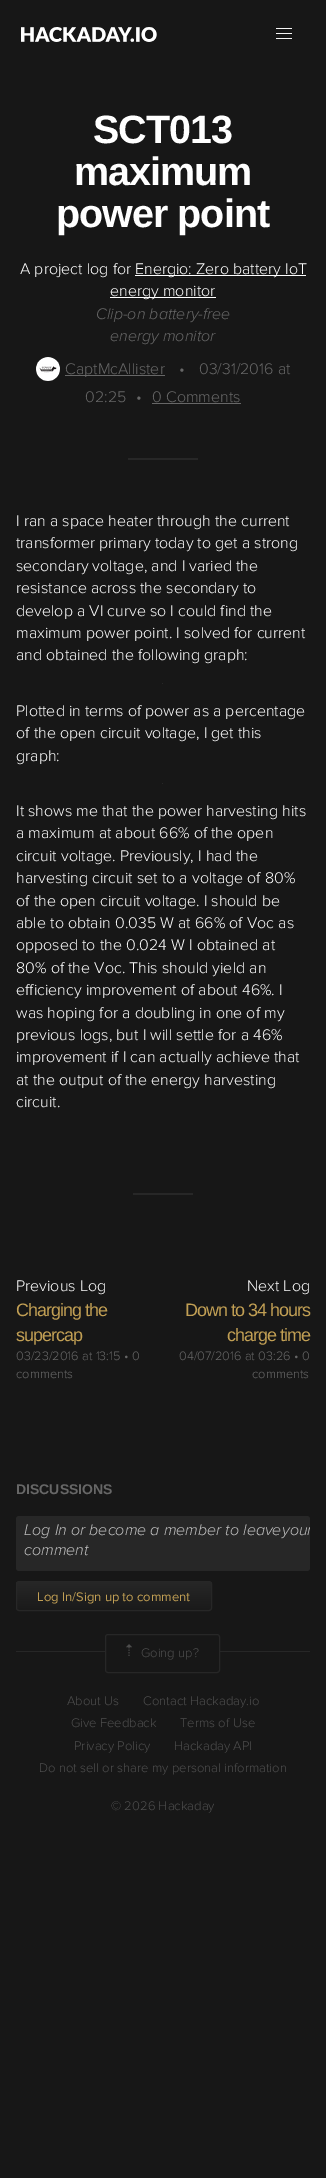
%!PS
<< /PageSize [326 2178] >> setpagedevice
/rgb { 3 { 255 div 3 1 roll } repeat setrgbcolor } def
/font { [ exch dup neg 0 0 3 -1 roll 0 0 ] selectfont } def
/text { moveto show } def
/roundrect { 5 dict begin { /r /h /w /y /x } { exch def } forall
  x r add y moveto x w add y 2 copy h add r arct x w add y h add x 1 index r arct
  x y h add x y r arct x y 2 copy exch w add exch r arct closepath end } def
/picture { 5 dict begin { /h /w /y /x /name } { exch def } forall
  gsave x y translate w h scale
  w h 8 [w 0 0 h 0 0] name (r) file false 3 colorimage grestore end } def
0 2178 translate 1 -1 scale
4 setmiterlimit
23 23 23 rgb
0 0 326 2178 rectfill
(img_01.rgb) 21 27 136 15 picture
245 245 245 rgb
276 28 16 1 rectfill
276 33 16 1 rectfill
276 38 16 1 rectfill
255 255 255 rgb
135 275 171 1 rectfill
110 297 106 1 rectfill
(img_02.rgb) 36 357 24 24 picture
103 103 103 rgb
65 375 100 1 rectfill
152 403 89 1 rectfill
39 39 39 rgb
128 458 70 2 rectfill
162 683 1 1 rectfill
162 783 1 1 rectfill
133 1193 60 2 rectfill
16 1516 294 55 3 roundrect fill
gsave
16 1581 196 30 3 roundrect clip newpath
gsave 16 1582 moveto 196 0 rlineto 0 28 rlineto -196 0 rlineto closepath clip newpath
<< /ShadingType 2 /ColorSpace /DeviceRGB /Coords [114 1582 114 1610] /Extend [true true] /Function << /FunctionType 2 /Domain [0 1] /C0 [0.153 0.153 0.153] /C1 [0.102 0.102 0.102] /N 1 >> >> shfill grestore
grestore
16.5 1581.5 195 29 2.5 roundrect stroke
16 1651 294 1 rectfill
23 23 23 rgb
105.5 1634.5 114 38 2.5 roundrect gsave fill grestore
39 39 39 rgb
stroke
(img_03.rgb) 126 1644 6 12 picture
/LiberationSans-Bold 39.5 font
255 255 255 rgb
93 143 moveto -1 0 (SCT013) ashow
74 185 moveto -1 0 (maximum) ashow
56 227 moveto -1 0 (power point) ashow
/ProximaNova-Light 16 font
(A project log for) 20 274 text
(Energio: Zero battery IoT) 135 274 text
(energy monitor) 110 296 text
/ProximaNova-LightItalic 16 font
103 103 103 rgb
(Clip-on battery-free) 96 319 text
(energy monitor) 110 341 text
/ProximaNova-Light 16 font
(CaptMcAllister) 65 374 text
(•) 179 374 text
(03/31/2016 at) 199 374 text
(02:25) 85 402 text
(•) 136 402 text
(0 Comments) 152 402 text
255 255 255 rgb
(I ran a space heater through the current) 16 526 text
(transformer primary today to get a strong) 16 548 text
(secondary voltage, and I varied the) 16 571 text
(resistance across the secondary to) 16 593 text
(develop a VI curve so I could find the) 16 616 text
(maximum power point. I solved for current) 16 638 text
(and obtained the following graph:) 16 660 text
(Plotted in terms of power as a percentage) 16 716 text
(of the open circuit voltage, I get this) 16 738 text
(graph:) 16 761 text
(It shows me that the power harvesting hits) 16 816 text
(a maximum at about 66% of the open) 16 838 text
(circuit voltage. Previously, I had the) 16 861 text
(harvesting circuit set to a voltage of 80%) 16 883 text
(of the open circuit voltage. I should be) 16 906 text
(able to obtain 0.035 W at 66% of Voc as) 16 928 text
(opposed to the 0.024 W I obtained at) 16 950 text
(80% of the Voc. This should yield an) 16 973 text
(efficiency improvement of about 46%. I) 16 995 text
(was hoping for a doubling in one of my) 16 1018 text
(previous logs, but I will settle for a 46%) 16 1040 text
(improvement if I can actually achieve that) 16 1062 text
(at the output of the energy harvesting) 16 1085 text
(circuit.) 16 1107 text
(Previous Log) 16 1291 text
/LiberationSans-Regular 18 font
193 159 84 rgb
16 1316 moveto -1 0 (Charging the) ashow
16 1341 moveto -1 0 (supercap) ashow
/ProximaNova-Light 12.75 font
103 103 103 rgb
(03/23/2016 at 13:15 • 0) 16 1360 text
(comments) 16 1378 text
/ProximaNova-Light 16 font
255 255 255 rgb
(Next Log) 247 1291 text
/LiberationSans-Regular 18 font
193 159 84 rgb
185 1316 moveto -1 0 (Down to 34 hours) ashow
227 1341 moveto -1 0 (charge time) ashow
/ProximaNova-Light 12.75 font
103 103 103 rgb
(04/07/2016 at 03:26 • 0) 179 1360 text
(comments) 252 1378 text
/LiberationSans-Bold 14 font
(DISCUSSIONS) 16 1494 text
/ProximaNova-LightItalic 16 font
191 191 191 rgb
(Log In or become a member to leave) 24 1535 text
gsave
16 1516 294 55 3 roundrect clip newpath
(your) 282 1535 text
grestore
(comment) 24 1555 text
/ProximaNova-Regular 13 font
193 159 84 rgb
(Log In/Sign up to comment) 37 1601 text
/ProximaNova-Light 13 font
77 77 77 rgb
(Going up?) 141 1657 text
(About Us) 67 1705 text
(Contact Hackaday.io) 143 1705 text
(Give Feedback) 71 1727 text
(Terms of Use) 180 1727 text
(Privacy Policy) 74 1750 text
(Hackaday API) 174 1750 text
(Do not sell or share my personal information) 39 1772 text
(© 2026 Hackaday) 111 1810 text
showpage
